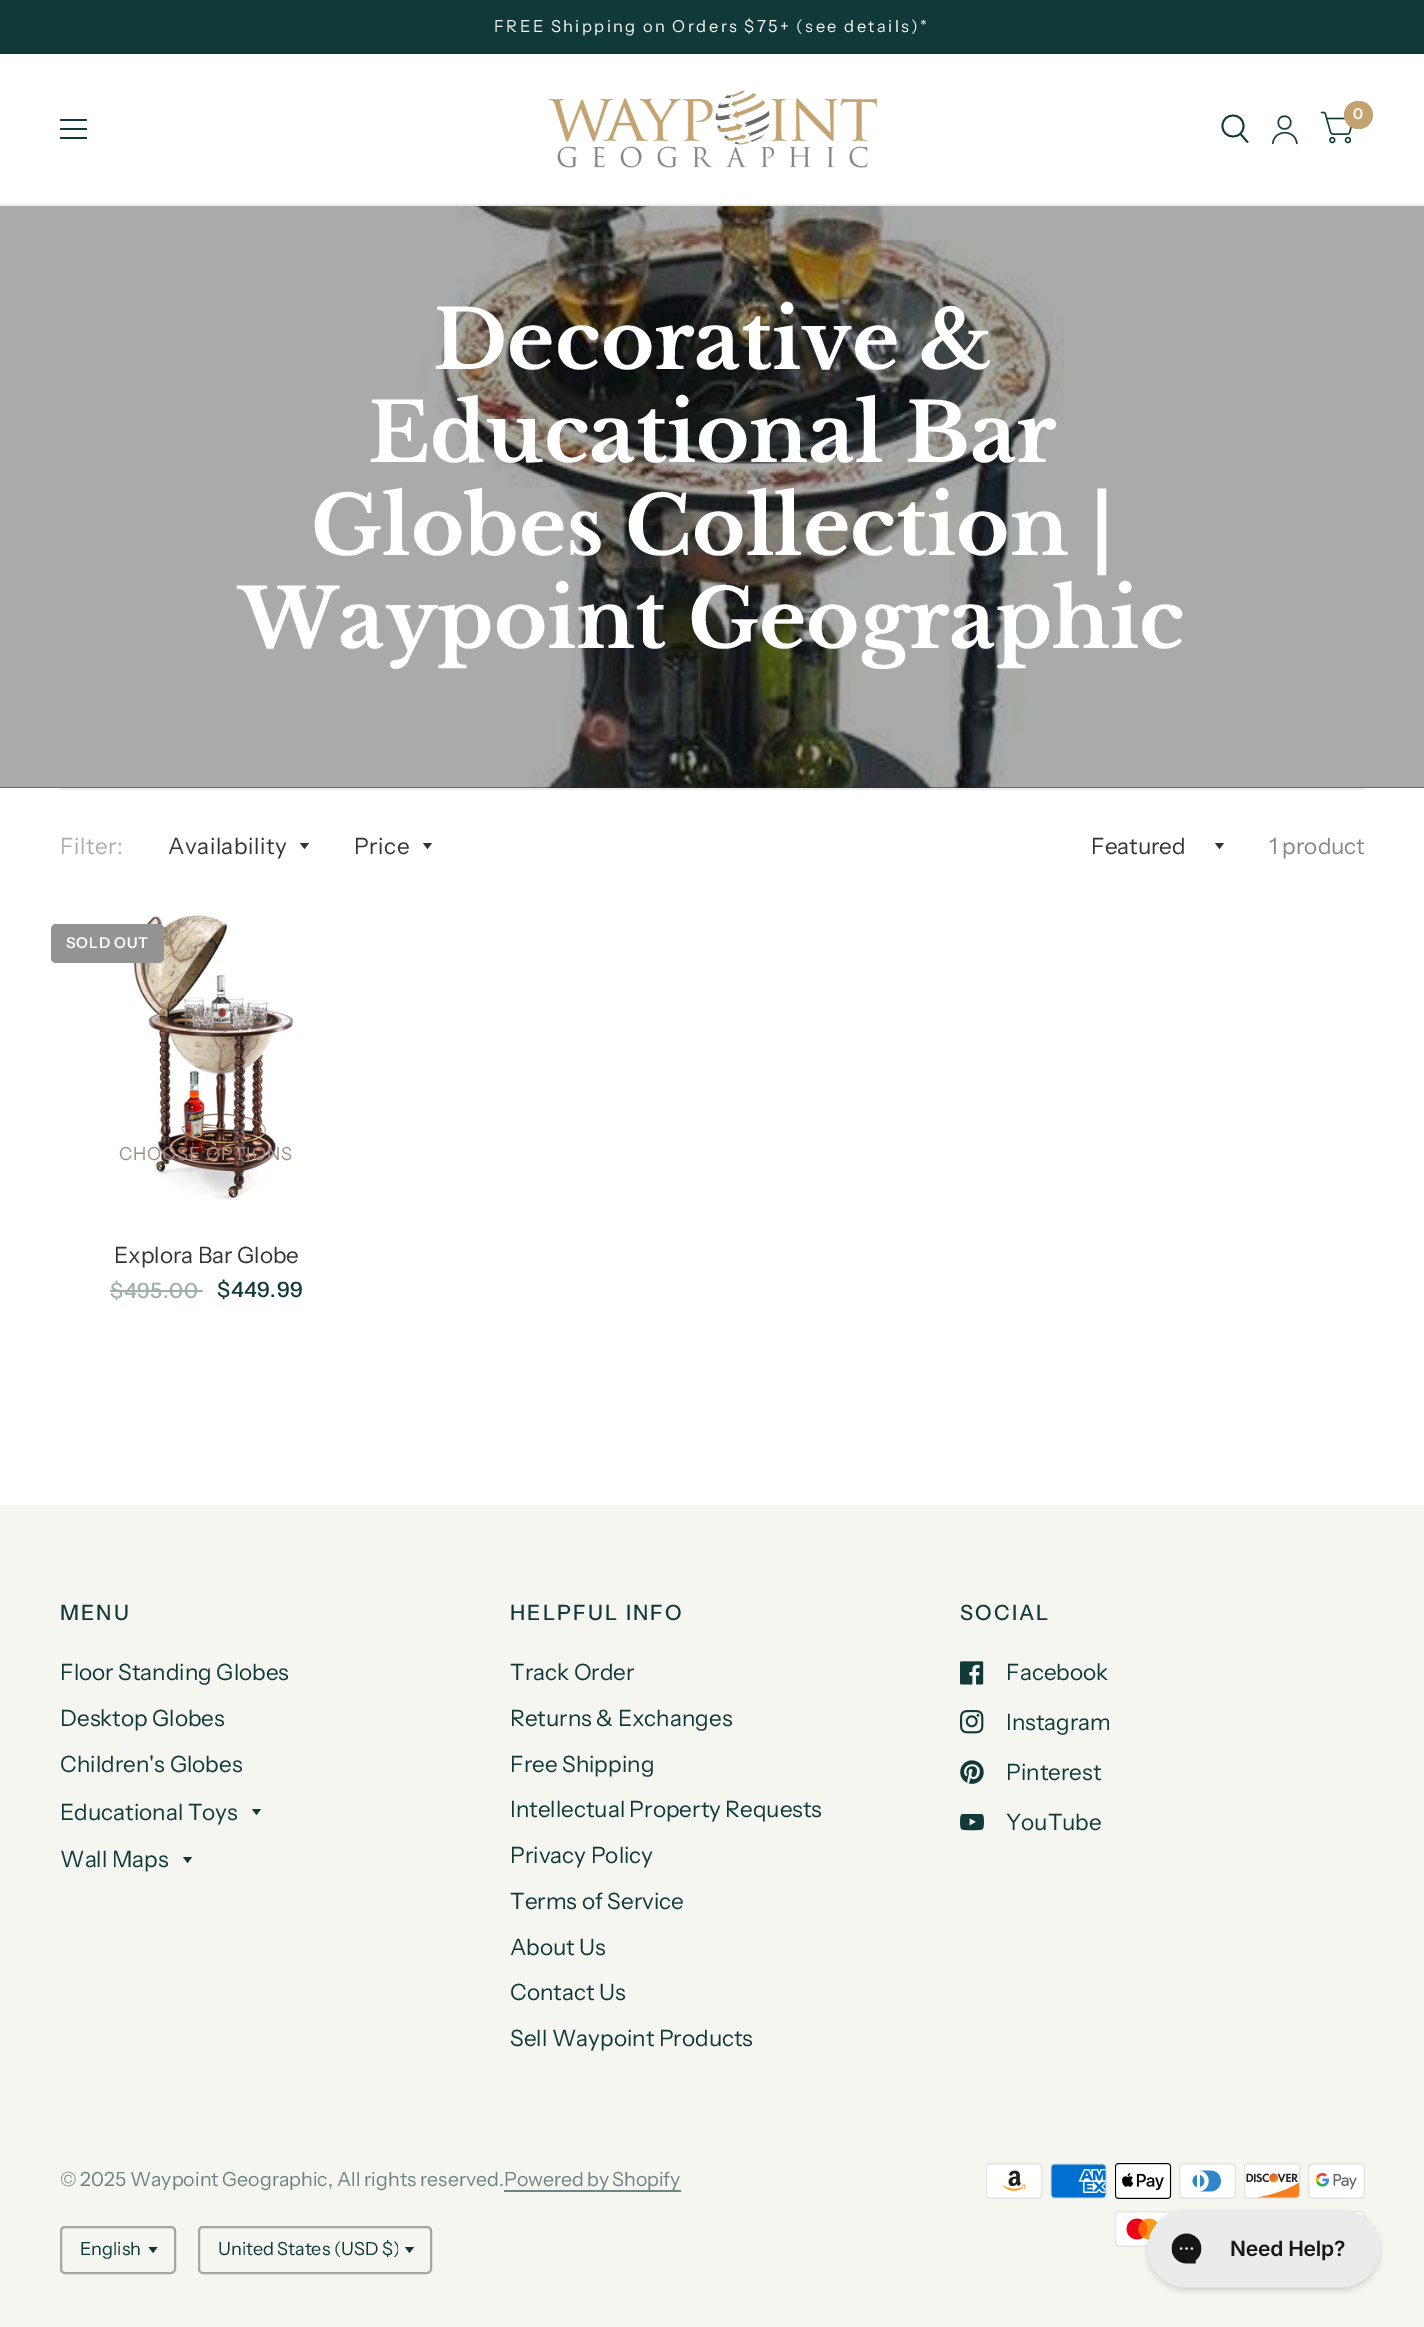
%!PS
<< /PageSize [1424 2327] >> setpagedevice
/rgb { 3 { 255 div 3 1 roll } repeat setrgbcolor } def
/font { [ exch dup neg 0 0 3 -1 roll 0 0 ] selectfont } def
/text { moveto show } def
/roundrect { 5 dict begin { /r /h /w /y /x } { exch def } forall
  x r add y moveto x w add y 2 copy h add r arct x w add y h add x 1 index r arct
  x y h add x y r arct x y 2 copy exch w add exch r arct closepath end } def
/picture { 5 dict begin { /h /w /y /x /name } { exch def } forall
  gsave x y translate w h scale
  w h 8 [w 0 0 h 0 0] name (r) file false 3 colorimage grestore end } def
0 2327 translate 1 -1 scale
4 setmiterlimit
255 255 255 rgb
0 0 1424 2327 rectfill
16 58 58 rgb
0 0 1424 54 rectfill
238 238 238 rgb
0 204 1424 2 rectfill
(img_01.rgb) 548 91 330 77 picture
16 58 58 rgb
1.8 setlinewidth
1 setlinecap
1 setlinejoin
1240.5 134 moveto 7 8 rlineto 1243.5 126 moveto 0 14 -21 14 -21 0 rcurveto 0 -14 21 -14 21 0 rcurveto closepath stroke
(img_02.rgb) 1271 115 27 30 picture
(img_03.rgb) 1320 111 32 33 picture
196 163 112 rgb
1344 101 29 28 14 roundrect fill
16 58 58 rgb
60 119 27 2 1 roundrect fill
60 128 27 2 1 roundrect fill
60 137 27 2 1 roundrect fill
37 38 38 rgb
0 787 1424 1 rectfill
(img_04.rgb) 0 206 1424 582 picture
238 238 238 rgb
60 788 1305 2 rectfill
51 51 51 rgb
300 843 moveto 9 0 rlineto -4.5 6 rlineto closepath fill
423 843 moveto 9 0 rlineto -4.5 6 rlineto closepath fill
1215 843 moveto 9 0 rlineto -4.5 6 rlineto closepath fill
(img_05.rgb) 132 913 165 288 picture
147 147 147 rgb
51 924 113 39 5 roundrect fill
159 176 176 rgb
110 1290 93 2 rectfill
246 246 240 rgb
0 1505 1424 822 rectfill
16 58 58 rgb
252 1809 moveto 9 0 rlineto -4.5 6 rlineto closepath fill
183 1857 moveto 9 0 rlineto -4.5 6 rlineto closepath fill
(img_06.rgb) 960 1661 24 24 picture
(img_07.rgb) 960 1710 24 24 picture
(img_08.rgb) 960 1760 24 24 picture
(img_09.rgb) 960 1814 24 17 picture
108 133 131 rgb
504 2190 177 2 rectfill
165 165 161 rgb
2 setlinewidth
0 setlinecap
0 setlinejoin
61 2227 114 46 4 roundrect stroke
16 58 58 rgb
148.5 2247 moveto 9 0 rlineto -4.5 6 rlineto closepath fill
165 165 161 rgb
199 2227 232 46 4 roundrect stroke
16 58 58 rgb
405 2247 moveto 9 0 rlineto -4.5 6 rlineto closepath fill
(img_10.rgb) 986 2163 57 36 picture
(img_11.rgb) 1050 2163 57 36 picture
(img_12.rgb) 1115 2163 57 36 picture
(img_13.rgb) 1179 2163 57 36 picture
(img_14.rgb) 1244 2163 57 36 picture
(img_15.rgb) 1308 2163 57 36 picture
(img_16.rgb) 1115 2211 56 36 picture
(img_17.rgb) 1351 2211 14 7 picture
(img_18.rgb) 1144 2209 239 85 picture
/InstrumentSans-Regular 16.5 font
246 246 240 rgb
494 32 moveto -0.75 0 32 2.45 0 (FREE Shipping on Orders $75+ \(see details\)*) awidthshow
/InstrumentSans-SemiBold 15 font
255 255 255 rgb
(0) 1353 119 text
/LibreBaskerville-Bold 81 font
(Decorative &) 433 369 text
(Educational Bar) 368 462 text
(Globes Collection |) 311 555 text
(Waypoint Geographic) 239 648 text
/InstrumentSans-Regular 22.5 font
173 173 173 rgb
60 854 moveto 0.5 0 (Filter:) ashow
51 51 51 rgb
168 854 moveto 0.5 0 (Availability) ashow
354 854 moveto 0.5 0 (Price) ashow
(Featured) 1091 854 text
133 133 133 rgb
(1 product) 1269 854 text
/InstrumentSans-SemiBold 15 font
255 255 255 rgb
66 948 moveto 0.75 0 (SOLD OUT) ashow
/InstrumentSans-Regular 18 font
161 142 135 rgb
119 1160 moveto 0.9 0 (CHOOSE OPTIONS) ashow
/InstrumentSans-Regular 22.5 font
51 51 51 rgb
(Explora Bar Globe) 114 1263 text
/InstrumentSans-Medium 21 font
159 176 176 rgb
110 1298 moveto 0.5 0 ($495.00) ashow
16 58 58 rgb
217 1297 moveto 0.5 0 ($449.99) ashow
60 1620 moveto 2.1 0 (MENU) ashow
/InstrumentSans-Regular 22.5 font
(Floor Standing Globes) 60 1680 text
(Desktop Globes) 60 1726 text
(Children's Globes) 60 1772 text
(Educational Toys) 60 1820 text
(Wall Maps) 60 1867 text
/InstrumentSans-Medium 21 font
510 1620 moveto 2.1 0 (HELPFUL INFO) ashow
/InstrumentSans-Regular 22.5 font
(Track Order) 510 1680 text
(Returns & Exchanges) 510 1726 text
(Free Shipping) 510 1772 text
(Intellectual Property Requests) 510 1817 text
(Privacy Policy) 510 1863 text
(Terms of Service) 510 1909 text
(About Us) 510 1955 text
(Contact Us) 510 2000 text
(Sell Waypoint Products) 510 2046 text
/InstrumentSans-Medium 21 font
960 1620 moveto 2.1 0 (SOCIAL) ashow
/InstrumentSans-Regular 22.5 font
(Facebook) 1006 1680 text
(Instagram) 1006 1730 text
(Pinterest) 1006 1780 text
(YouTube) 1006 1830 text
/InstrumentSans-Regular 19.5 font
108 133 131 rgb
(© 2025 Waypoint Geographic, All rights reserved.) 60 2186 text
504 2186 moveto -1 0 32 (Powered by Shopify) widthshow
/InstrumentSans-Regular 18 font
16 58 58 rgb
(English) 80 2255 text
gsave
218 2238 180 23 rectclip
(United States \(USD $\)) 218 2255 text
grestore
showpage
